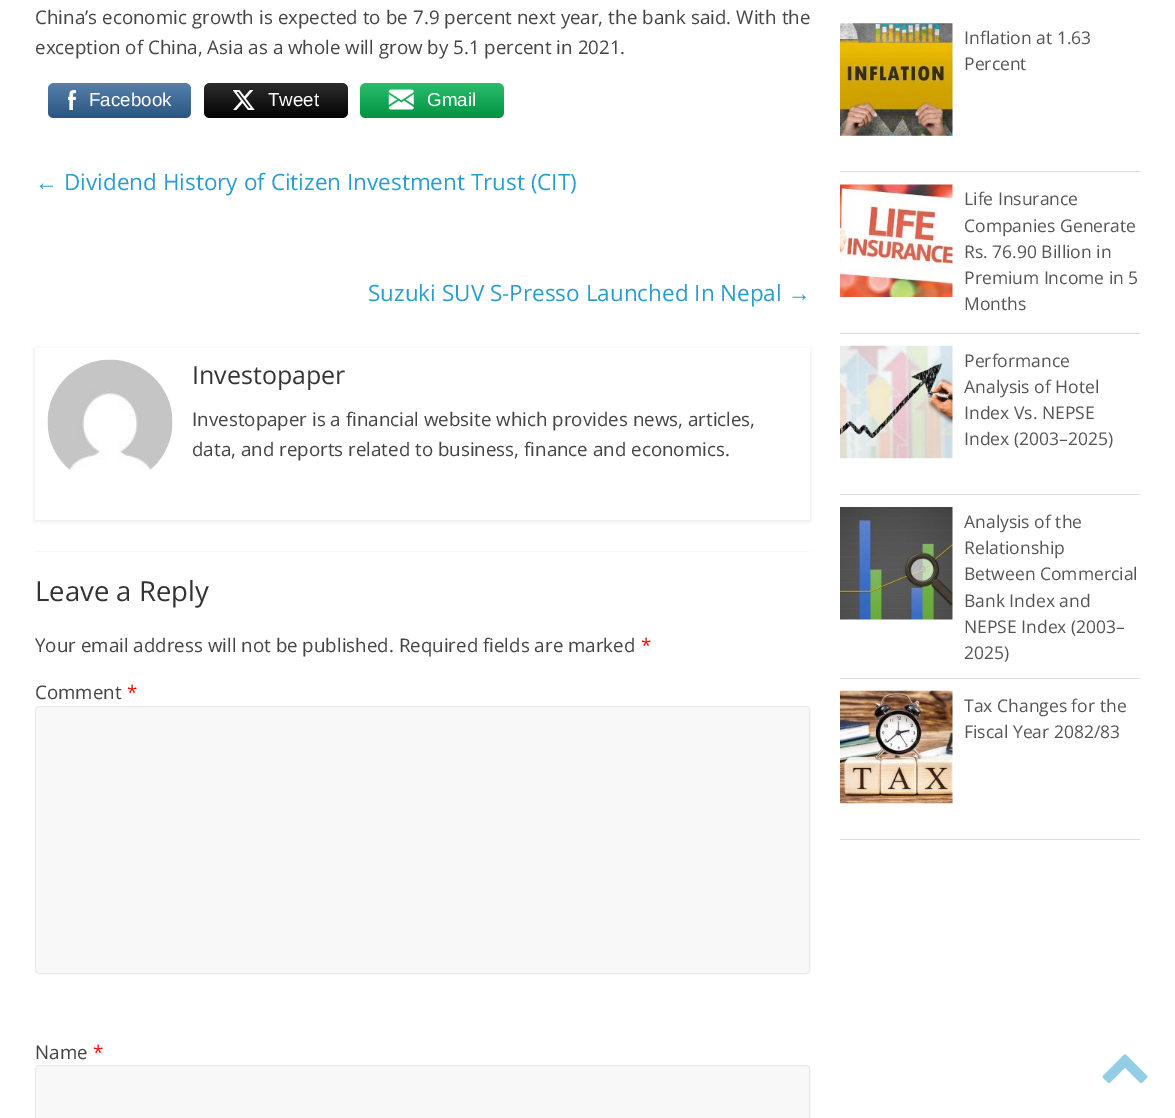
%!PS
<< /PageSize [1175 1118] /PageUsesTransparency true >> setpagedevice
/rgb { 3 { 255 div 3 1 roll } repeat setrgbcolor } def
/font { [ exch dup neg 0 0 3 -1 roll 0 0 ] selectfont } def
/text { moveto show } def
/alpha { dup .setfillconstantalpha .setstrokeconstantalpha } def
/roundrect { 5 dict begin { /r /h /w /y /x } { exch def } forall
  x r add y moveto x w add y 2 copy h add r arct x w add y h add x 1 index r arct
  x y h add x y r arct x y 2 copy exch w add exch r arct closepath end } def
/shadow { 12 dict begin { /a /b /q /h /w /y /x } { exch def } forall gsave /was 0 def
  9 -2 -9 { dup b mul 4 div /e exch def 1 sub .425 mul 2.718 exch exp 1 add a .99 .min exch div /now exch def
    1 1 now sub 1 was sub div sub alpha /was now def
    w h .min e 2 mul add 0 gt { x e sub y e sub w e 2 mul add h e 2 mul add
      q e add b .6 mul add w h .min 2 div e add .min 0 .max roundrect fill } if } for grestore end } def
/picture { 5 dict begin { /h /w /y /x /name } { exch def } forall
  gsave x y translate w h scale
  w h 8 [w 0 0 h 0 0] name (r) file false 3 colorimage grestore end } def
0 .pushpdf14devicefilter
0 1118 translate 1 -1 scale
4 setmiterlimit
255 255 255 rgb
0 0 1175 1118 rectfill
51 102 153 rgb
48 83 143 35 6 roundrect fill
0.17 alpha
gsave 48 83 143 35 6 roundrect clip newpath
<< /ShadingType 2 /ColorSpace /DeviceRGB /Coords [119 118 119 83] /Extend [true true] /Function << /FunctionType 2 /Domain [0 1] /C0 [0 0 0] /C1 [1 1 1] /N 1 >> >> shfill grestore
1 alpha
(img_01.rgb) 68 90 8 20 picture
2 2 2 rgb
204 83 144 35 6 roundrect fill
0.17 alpha
gsave 204 83 144 35 6 roundrect clip newpath
<< /ShadingType 2 /ColorSpace /DeviceRGB /Coords [276 118 276 83] /Extend [true true] /Function << /FunctionType 2 /Domain [0 1] /C0 [0 0 0] /C1 [1 1 1] /N 1 >> >> shfill grestore
1 alpha
(img_02.rgb) 233 90 22 20 picture
0 176 78 rgb
360 83 144 35 6 roundrect fill
0.17 alpha
gsave 360 83 144 35 6 roundrect clip newpath
<< /ShadingType 2 /ColorSpace /DeviceRGB /Coords [432 118 432 83] /Extend [true true] /Function << /FunctionType 2 /Domain [0 1] /C0 [0 0 0] /C1 [1 1 1] /N 1 >> >> shfill grestore
1 alpha
(img_03.rgb) 388 89 26 21 picture
gsave
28 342 moveto 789 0 rlineto 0 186 rlineto -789 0 rlineto closepath 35 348 moveto 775 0 rlineto 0 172 rlineto -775 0 rlineto closepath eoclip newpath
0 0 0 rgb
35 349 775 172 0 2 0.1 shadow
grestore
(img_04.rgb) 47 359 126 111 picture
248 248 248 rgb
35 551 775 1 rectfill
35.5 706.5 774 267 3.5 roundrect gsave fill grestore
234 234 234 rgb
stroke
248 248 248 rgb
35.5 1065.5 774 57 3.5 roundrect gsave fill grestore
234 234 234 rgb
stroke
221 221 221 rgb
840 171 300 1 rectfill
(img_05.rgb) 840 23 113 113 picture
840 333 300 1 rectfill
(img_06.rgb) 840 184 113 113 picture
840 494 300 1 rectfill
(img_07.rgb) 840 345 113 114 picture
840 678 300 1 rectfill
(img_08.rgb) 840 507 113 113 picture
840 839 300 1 rectfill
(img_09.rgb) 840 690 113 114 picture
(img_10.rgb) 1102 1054 46 30 picture
/OpenSans-Regular 18.75 font
68 68 68 rgb
35 24 moveto 0.25 0 32 (China’s economic growth is expected to be 7.9 percent next year, the bank said. With the) widthshow
(exception of China, Asia as a whole will grow by 5.1 percent in 2021.) 35 54 text
/LiberationSans-Regular 18.75 font
255 255 255 rgb
(Facebook) 89 106 text
(Tweet) 268 106 text
(Gmail) 427 106 text
/LiberationSerif-Regular 22.5 font
40 157 204 rgb
(←) 35 190 text
/OpenSans-Regular 22.5 font
(Dividend History of Citizen Investment Trust \(CIT\)) 64 190 text
(Suzuki SUV S-Presso Launched In Nepal) 368 301 text
/LiberationSerif-Regular 22.5 font
(→) 788 301 text
/OpenSans-Regular 25 font
51 51 51 rgb
(Investopaper) 192 384 text
/OpenSans-Regular 18.75 font
68 68 68 rgb
(Investopaper is a financial website which provides news, articles,) 192 426 text
(data, and reports related to business, finance and economics.) 192 456 text
/OpenSans-Regular 27.5 font
51 51 51 rgb
(Leave a Reply) 35 601 text
/OpenSans-Regular 18.75 font
68 68 68 rgb
(Your email address will not be published. Required fields are marked) 35 652 text
255 0 0 rgb
(*) 641 652 text
68 68 68 rgb
(Comment) 35 699 text
255 0 0 rgb
(*) 127 699 text
68 68 68 rgb
(Name) 35 1059 text
255 0 0 rgb
(*) 93 1059 text
/OpenSans-Regular 17.5 font
85 85 85 rgb
(Inflation at 1.63) 964 44 text
(Percent) 964 70 text
(Life Insurance) 964 205 text
(Companies Generate) 964 232 text
(Rs. 76.90 Billion in) 964 258 text
(Premium Income in 5) 964 284 text
(Months) 964 310 text
(Performance) 964 367 text
(Analysis of Hotel) 964 393 text
(Index Vs. NEPSE) 964 419 text
(Index \(2003–2025\)) 964 445 text
(Analysis of the) 964 528 text
(Relationship) 964 554 text
(Between Commercial) 964 580 text
(Bank Index and) 964 607 text
(NEPSE Index \(2003–) 964 633 text
(2025\)) 964 659 text
(Tax Changes for the) 964 712 text
(Fiscal Year 2082/83) 964 738 text
.poppdf14devicefilter showpage
